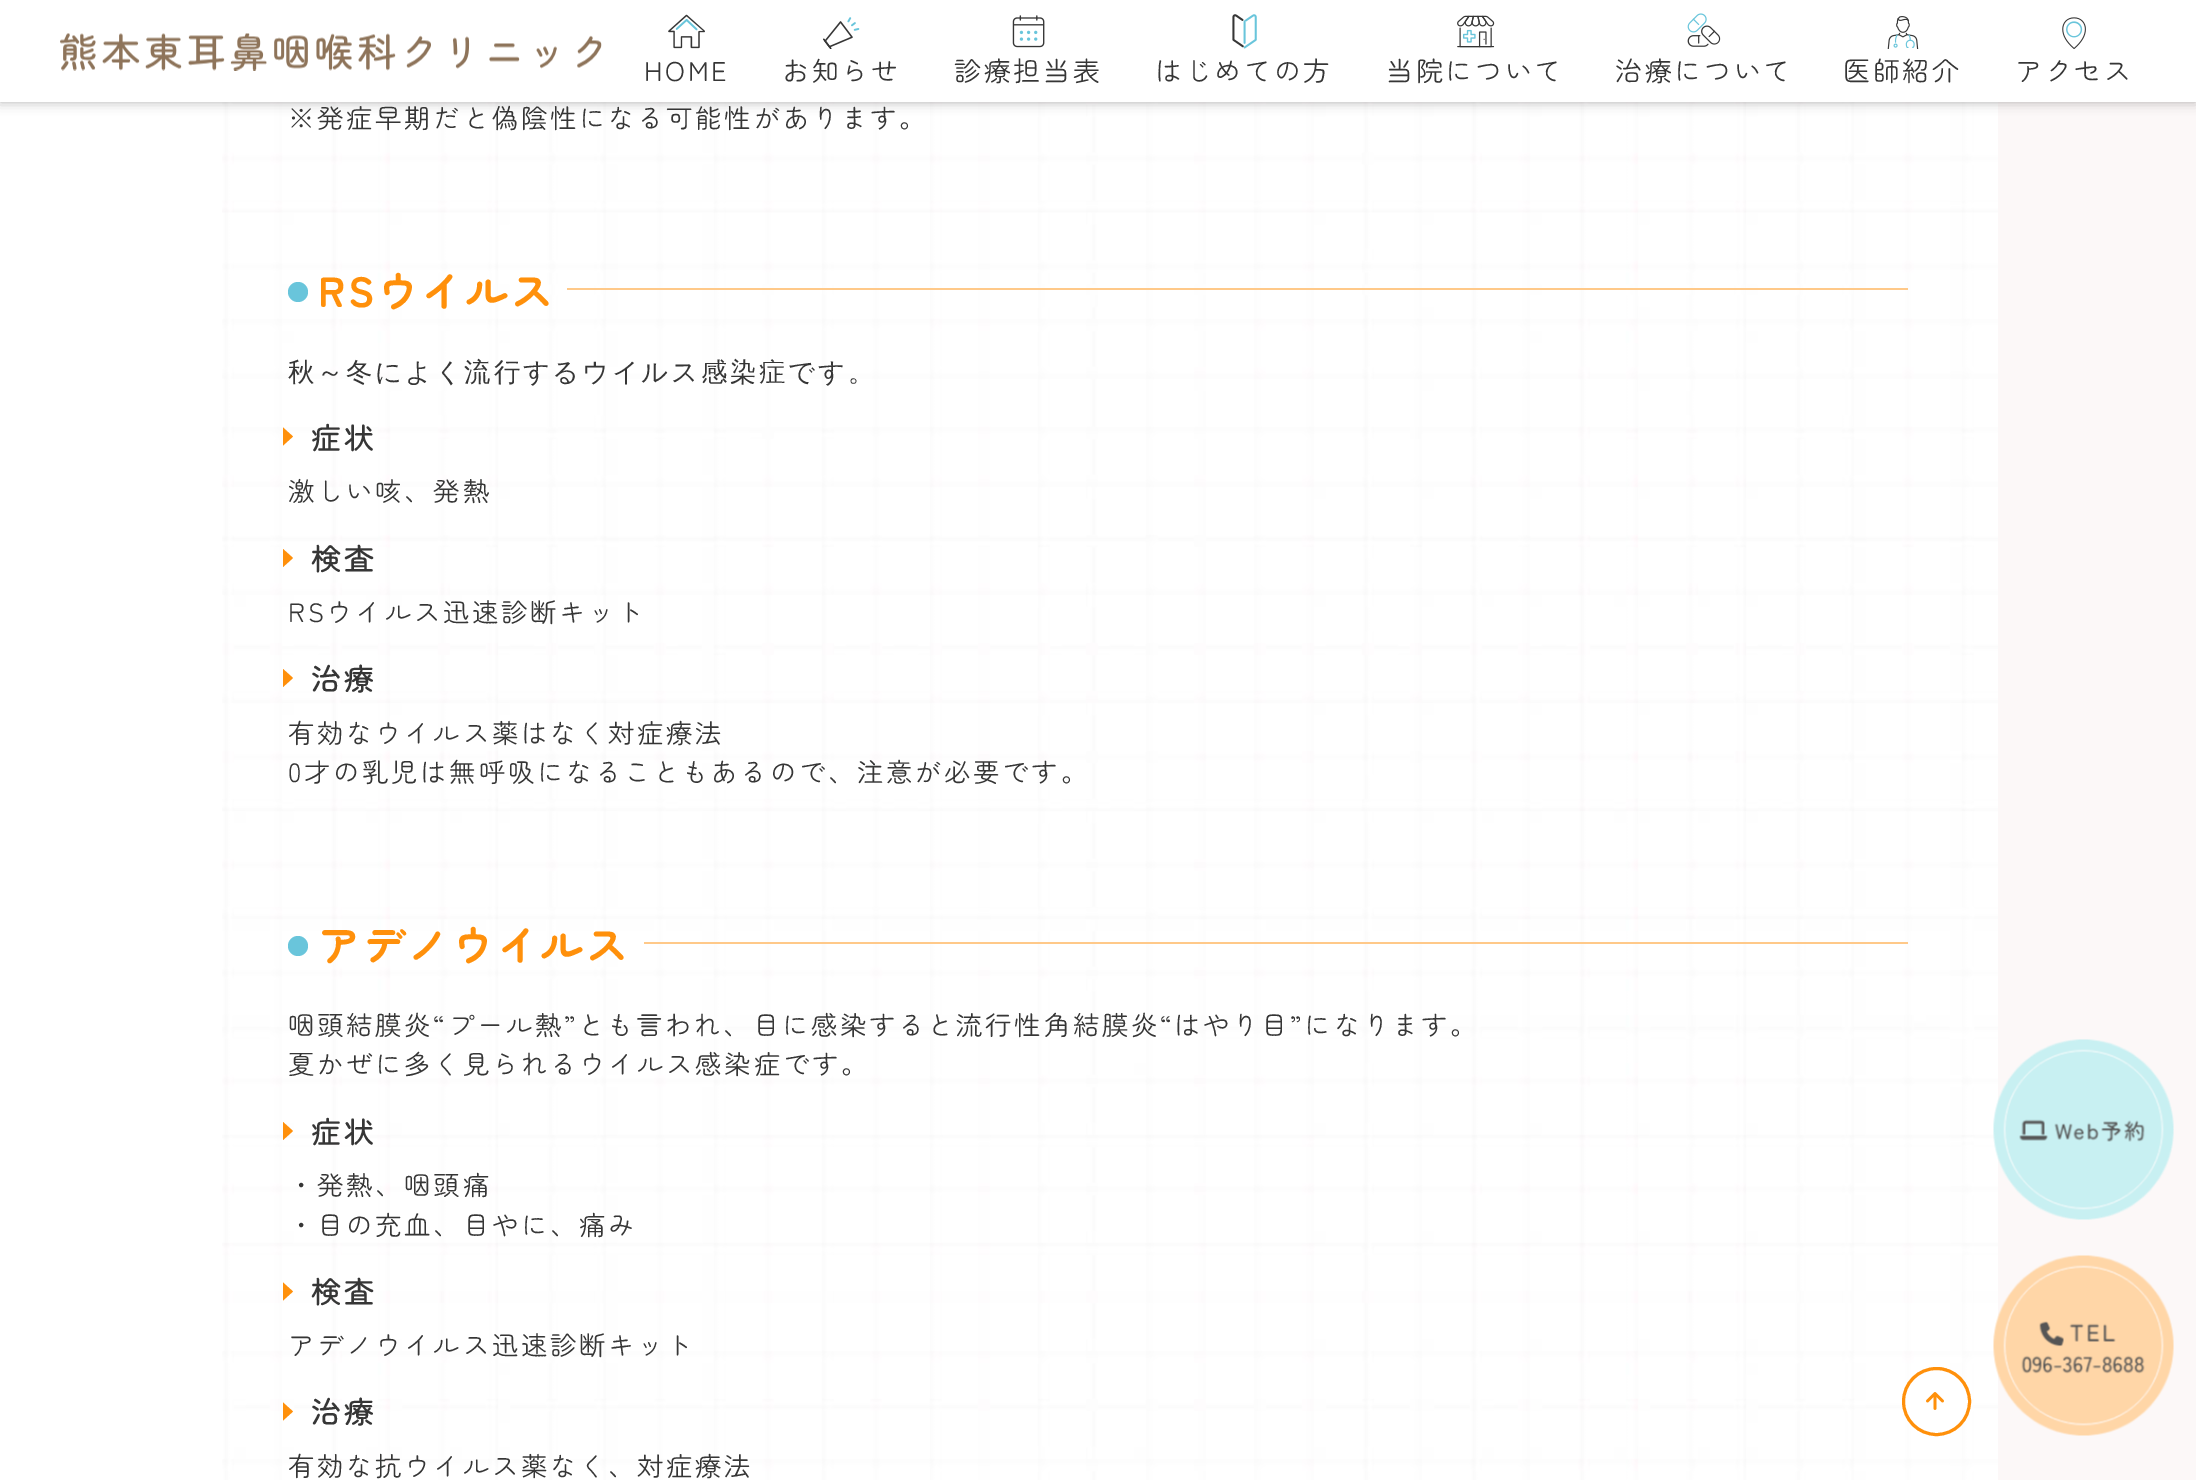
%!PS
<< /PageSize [2196 1480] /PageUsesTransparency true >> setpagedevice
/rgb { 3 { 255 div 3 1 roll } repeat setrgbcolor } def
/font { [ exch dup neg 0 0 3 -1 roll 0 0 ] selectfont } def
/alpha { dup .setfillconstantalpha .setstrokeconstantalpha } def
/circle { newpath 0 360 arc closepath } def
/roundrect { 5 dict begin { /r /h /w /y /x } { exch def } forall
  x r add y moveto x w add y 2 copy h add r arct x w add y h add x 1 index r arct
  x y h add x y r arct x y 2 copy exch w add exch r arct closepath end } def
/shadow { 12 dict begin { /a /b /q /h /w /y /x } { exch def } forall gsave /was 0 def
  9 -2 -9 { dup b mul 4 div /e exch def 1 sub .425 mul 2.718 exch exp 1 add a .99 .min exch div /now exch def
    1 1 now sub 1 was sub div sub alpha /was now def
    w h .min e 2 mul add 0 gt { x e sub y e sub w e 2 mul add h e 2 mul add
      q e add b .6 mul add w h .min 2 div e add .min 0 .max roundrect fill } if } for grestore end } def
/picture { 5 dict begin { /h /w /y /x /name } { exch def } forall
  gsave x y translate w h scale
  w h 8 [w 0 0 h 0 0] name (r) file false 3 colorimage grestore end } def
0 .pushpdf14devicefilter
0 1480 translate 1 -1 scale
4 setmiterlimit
255 255 255 rgb
0 0 2196 1480 rectfill
(img_01.rgb) 1998 102 198 1378 picture
(img_11.rgb) 222 102 1776 1378 picture
0 0 0 rgb
0 0 2196 102 0 6 0.3 shadow
255 255 255 rgb
0 0 2196 102 rectfill
(img_02.rgb) 60 33 542 38 picture
(img_03.rgb) 668 14 37 35 picture
(img_04.rgb) 823 17 37 32 picture
(img_05.rgb) 1012 15 33 33 picture
(img_06.rgb) 1232 14 25 35 picture
(img_07.rgb) 1457 15 38 33 picture
(img_08.rgb) 1687 13 34 34 picture
(img_09.rgb) 1887 16 32 33 picture
(img_10.rgb) 2062 17 24 32 picture
105 197 219 rgb
298 292 10 circle fill
255 201 137 rgb
567 288 1341 2 rectfill
255 144 11 rgb
283 445.5 moveto 0 -18 rlineto 10 9 rlineto closepath fill
283 567 moveto 0 -18 rlineto 10 9 rlineto closepath fill
283 687 moveto 0 -18 rlineto 10 9 rlineto closepath fill
105 197 219 rgb
298 946 10 circle fill
255 201 137 rgb
644 942 1264 2 rectfill
255 144 11 rgb
283 1140 moveto 0 -18 rlineto 10 9 rlineto closepath fill
283 1300.5 moveto 0 -18 rlineto 10 9 rlineto closepath fill
283 1420.5 moveto 0 -18 rlineto 10 9 rlineto closepath fill
(img_12.rgb) 1993 1039 181 181 picture
(img_13.rgb) 1993 1255 181 181 picture
255 255 255 rgb
1936.5 1401.5 33 circle gsave fill grestore
255 144 11 rgb
3 setlinewidth
stroke
1.4 setlinewidth
1936.5 1368 moveto 27 0 42 30.5 27.5 52 rcurveto stroke
(img_14.rgb) 1926 1392 18 18 picture
/ZenMaruGothic-Regular 27 font
54 54 54 rgb
644 81 moveto 2.7 0 (HOME) ashow
782 81 moveto 2.7 0 (お知らせ) ashow
954 81 moveto 2.7 0 (診療担当表) ashow
1155 81 moveto 2.7 0 (はじめての方) ashow
1386 81 moveto 2.7 0 (当院について) ashow
1615 81 moveto 2.7 0 (治療について) ashow
1843 81 moveto 2.7 0 (医師紹介) ashow
2015 81 moveto 2.7 0 (アクセス) ashow
/ZenMaruGothic-Regular 26.4 font
288 128 moveto 2.7 0 (※発症早期だと偽陰性になる可能性があります。) ashow
/ZenMaruGothic-Bold 42 font
255 144 11 rgb
318 307 moveto 2.7 0 (RSウイルス) ashow
/WenQuanYiZenHei-Medium 26.4 font
54 54 54 rgb
288 381 moveto 2.7 0 (秋～冬によく流行するウイルス感染症です。) ashow
/ZenMaruGothic-Medium 30 font
311 449 moveto 2.7 0 (症状) ashow
/ZenMaruGothic-Regular 26.4 font
288 501 moveto 2.7 0 (激しい咳、発熱) ashow
/ZenMaruGothic-Medium 30 font
311 570 moveto 2.7 0 (検査) ashow
/ZenMaruGothic-Regular 26.4 font
288 622 moveto 2.7 0 (RSウイルス迅速診断キット) ashow
/ZenMaruGothic-Medium 30 font
311 690 moveto 2.7 0 (治療) ashow
/ZenMaruGothic-Regular 26.4 font
288 743 moveto 2.7 0 (有効なウイルス薬はなく対症療法) ashow
288 782 moveto 2.7 0 (0才の乳児は無呼吸になることもあるので、注意が必要です。) ashow
/ZenMaruGothic-Bold 42 font
255 144 11 rgb
318 961 moveto 2.7 0 (アデノウイルス) ashow
/ZenMaruGothic-Regular 26.4 font
54 54 54 rgb
288 1035 moveto 2.7 0 (咽頭結膜炎“プール熱”とも言われ、目に感染すると流行性角結膜炎“はやり目”になります。) ashow
288 1074 moveto 2.7 0 (夏かぜに多く見られるウイルス感染症です。) ashow
/ZenMaruGothic-Medium 30 font
311 1143 moveto 2.7 0 (症状) ashow
/ZenMaruGothic-Regular 26.4 font
288 1195 moveto 2.7 0 (・発熱、咽頭痛) ashow
288 1235 moveto 2.7 0 (・目の充血、目やに、痛み) ashow
/ZenMaruGothic-Medium 30 font
311 1303 moveto 2.7 0 (検査) ashow
/ZenMaruGothic-Regular 26.4 font
288 1355 moveto 2.7 0 (アデノウイルス迅速診断キット) ashow
/ZenMaruGothic-Medium 30 font
311 1423 moveto 2.7 0 (治療) ashow
/ZenMaruGothic-Regular 26.4 font
288 1476 moveto 2.7 0 (有効な抗ウイルス薬なく、対症療法) ashow
.poppdf14devicefilter showpage
